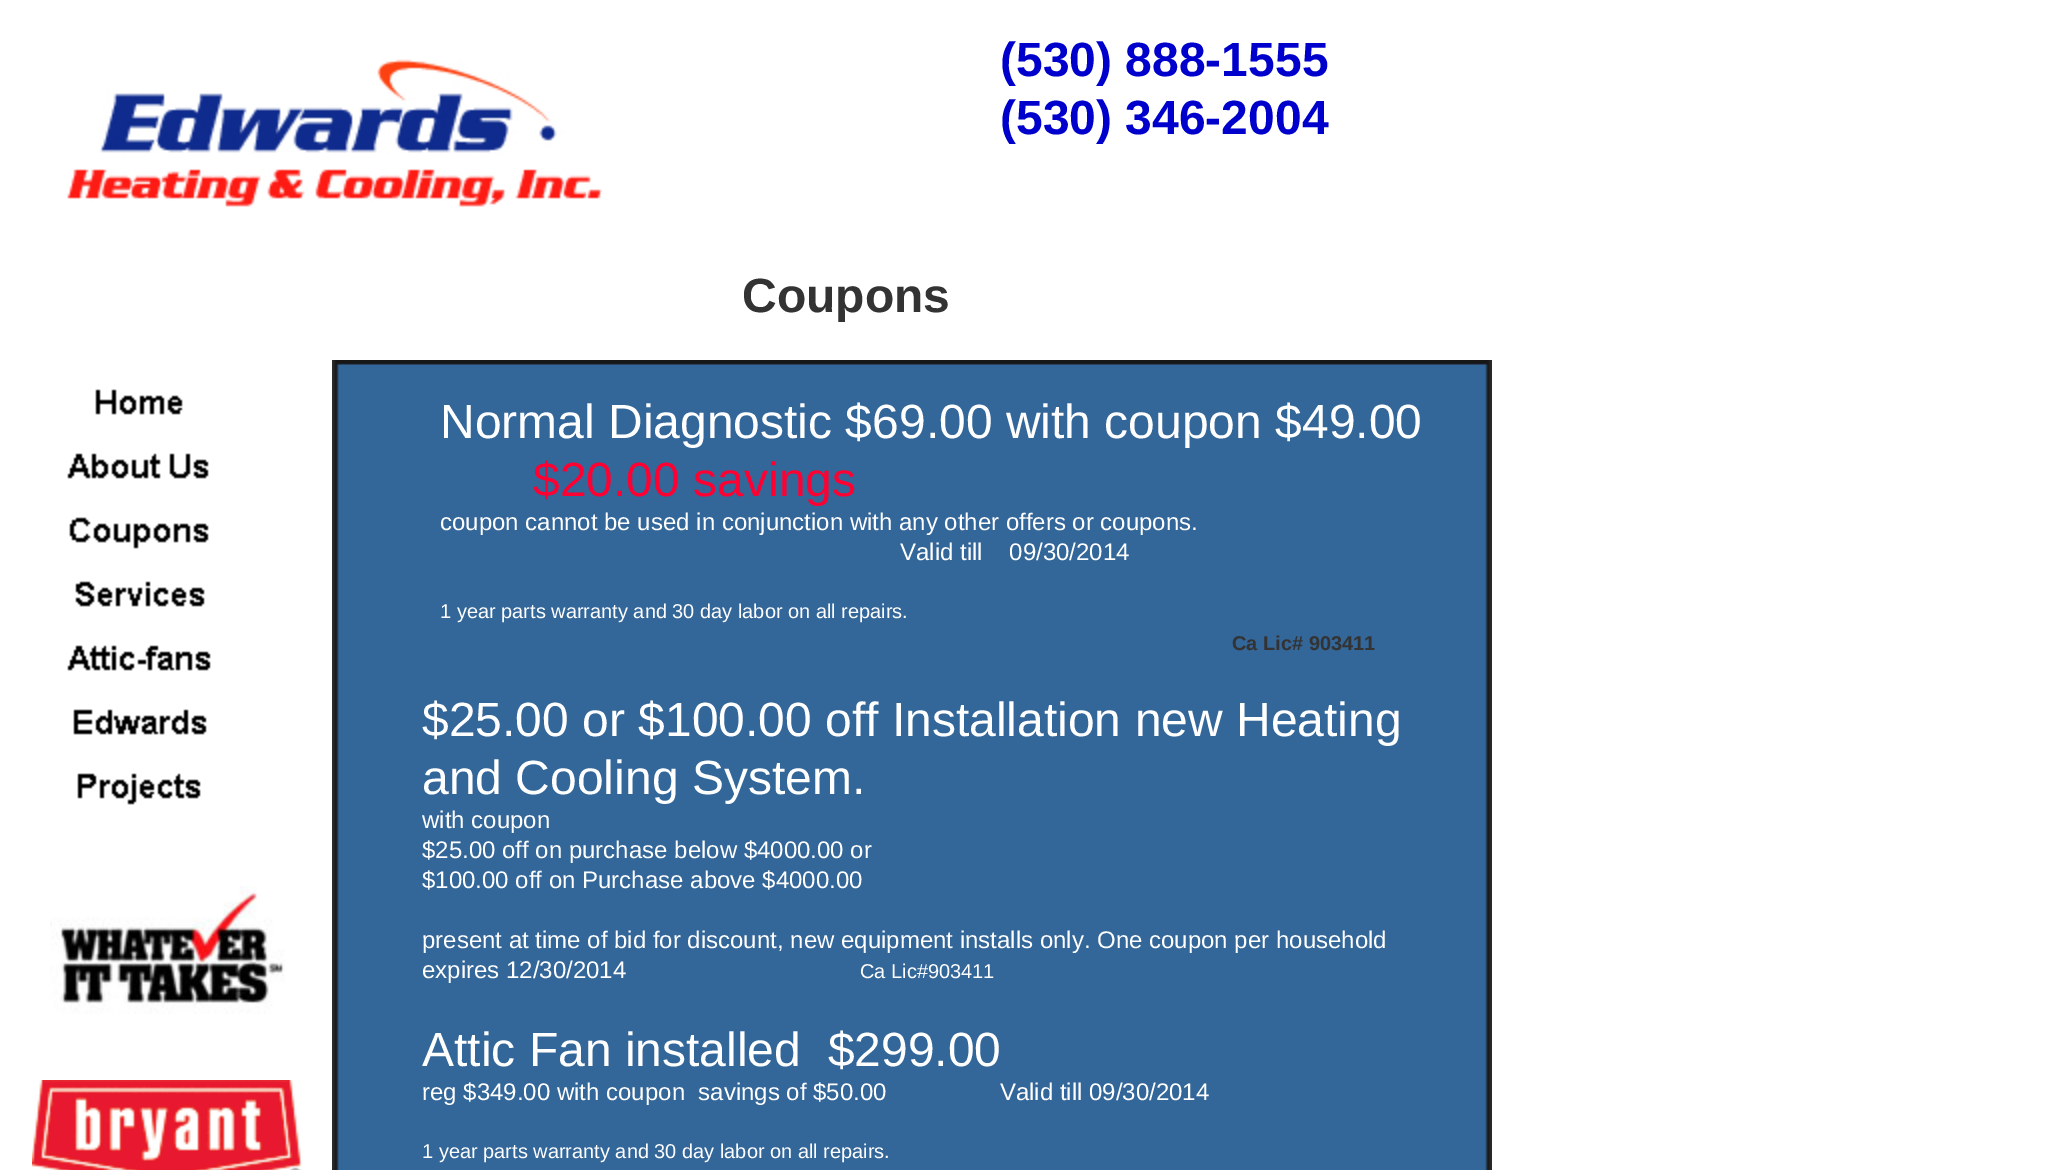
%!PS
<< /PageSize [2057 1170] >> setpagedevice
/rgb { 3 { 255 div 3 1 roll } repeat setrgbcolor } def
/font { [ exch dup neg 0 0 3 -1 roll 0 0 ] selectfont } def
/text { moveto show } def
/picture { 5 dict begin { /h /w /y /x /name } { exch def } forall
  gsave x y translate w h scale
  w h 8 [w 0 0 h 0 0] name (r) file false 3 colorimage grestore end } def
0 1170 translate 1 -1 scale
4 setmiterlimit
255 255 255 rgb
0 0 2057 1170 rectfill
(img_01.rgb) 67 59 536 148 picture
(img_02.rgb) 95 389 88 26 picture
(img_03.rgb) 67 453 142 26 picture
(img_04.rgb) 69 517 140 32 picture
(img_05.rgb) 75 581 130 26 picture
(img_06.rgb) 67 645 144 26 picture
(img_07.rgb) 73 709 134 26 picture
(img_08.rgb) 77 773 124 32 picture
(img_09.rgb) 332 360 1160 810 picture
(img_10.rgb) 50 886 235 128 picture
(img_11.rgb) 32 1080 270 90 picture
/LiberationSans-Bold 48 font
0 0 204 rgb
(\(530\) 888-1555) 1000 76 text
(\(530\) 346-2004) 1000 134 text
51 51 51 rgb
(Coupons) 742 312 text
/LiberationSans-Regular 48 font
255 255 255 rgb
(Normal Diagnostic $69.00 with coupon $49.00) 440 438 text
255 0 51 rgb
($20.00 savings) 533 496 text
/LiberationSans-Regular 24 font
255 255 255 rgb
(coupon cannot be used in conjunction with any other offers or coupons.) 440 530 text
(Valid till    09/30/2014) 900 560 text
/LiberationSans-Regular 20 font
(1 year parts warranty and 30 day labor on all repairs.) 440 618 text
/LiberationSans-Bold 20 font
51 51 51 rgb
(Ca Lic# 903411) 1232 650 text
/LiberationSans-Regular 48 font
255 255 255 rgb
($25.00 or $100.00 off Installation new Heating) 422 736 text
(and Cooling System.) 422 794 text
/LiberationSans-Regular 24 font
(with coupon) 422 828 text
($25.00 off on purchase below $4000.00 or) 422 858 text
($100.00 off on Purchase above $4000.00) 422 888 text
(present at time of bid for discount, new equipment installs only. One coupon per household) 422 948 text
(expires 12/30/2014) 422 978 text
/LiberationSans-Regular 20 font
(Ca Lic#903411) 860 978 text
/LiberationSans-Regular 48 font
(Attic Fan installed  $299.00) 422 1066 text
/LiberationSans-Regular 24 font
(reg $349.00 with coupon  savings of $50.00                 Valid till 09/30/2014) 422 1100 text
/LiberationSans-Regular 20 font
(1 year parts warranty and 30 day labor on all repairs.) 422 1158 text
showpage
